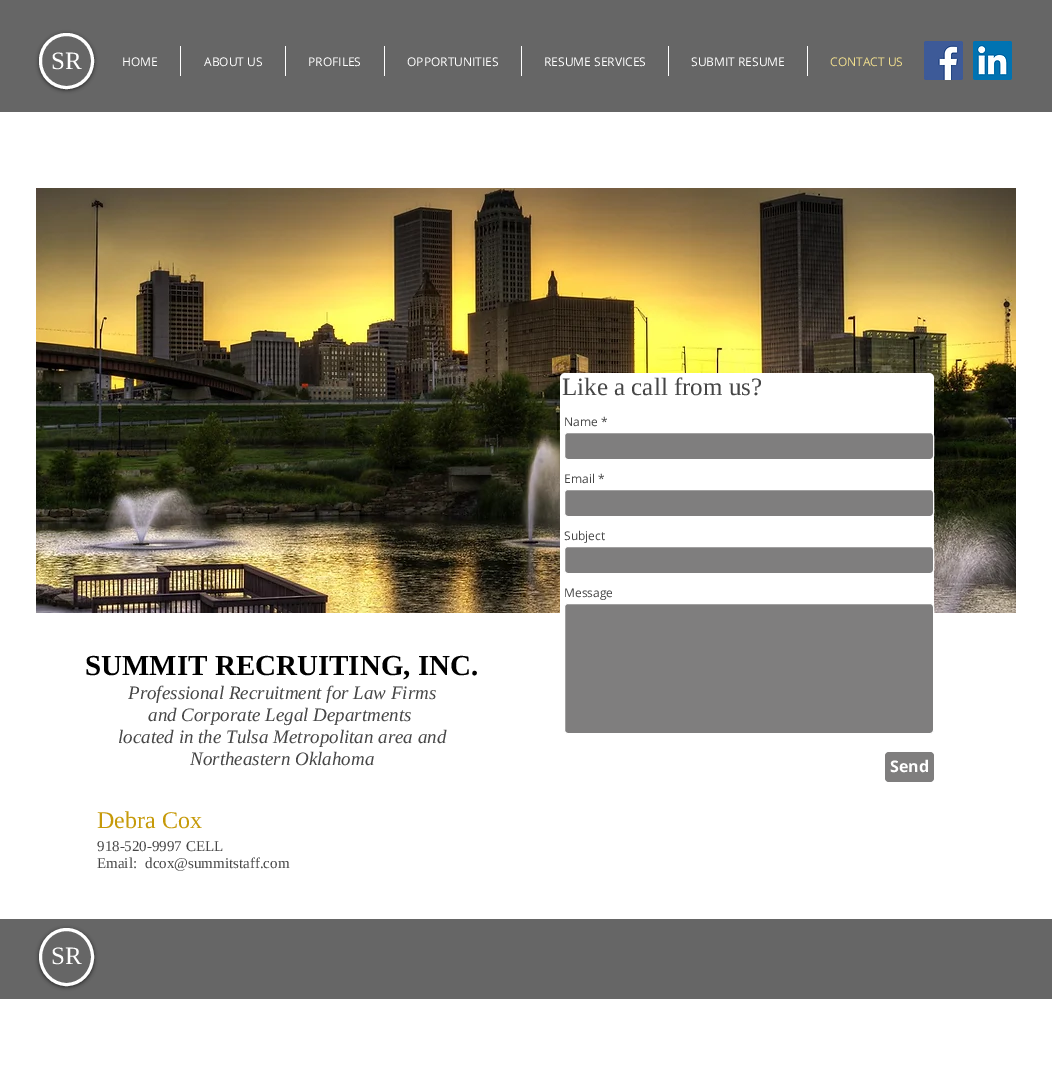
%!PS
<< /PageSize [1052 1071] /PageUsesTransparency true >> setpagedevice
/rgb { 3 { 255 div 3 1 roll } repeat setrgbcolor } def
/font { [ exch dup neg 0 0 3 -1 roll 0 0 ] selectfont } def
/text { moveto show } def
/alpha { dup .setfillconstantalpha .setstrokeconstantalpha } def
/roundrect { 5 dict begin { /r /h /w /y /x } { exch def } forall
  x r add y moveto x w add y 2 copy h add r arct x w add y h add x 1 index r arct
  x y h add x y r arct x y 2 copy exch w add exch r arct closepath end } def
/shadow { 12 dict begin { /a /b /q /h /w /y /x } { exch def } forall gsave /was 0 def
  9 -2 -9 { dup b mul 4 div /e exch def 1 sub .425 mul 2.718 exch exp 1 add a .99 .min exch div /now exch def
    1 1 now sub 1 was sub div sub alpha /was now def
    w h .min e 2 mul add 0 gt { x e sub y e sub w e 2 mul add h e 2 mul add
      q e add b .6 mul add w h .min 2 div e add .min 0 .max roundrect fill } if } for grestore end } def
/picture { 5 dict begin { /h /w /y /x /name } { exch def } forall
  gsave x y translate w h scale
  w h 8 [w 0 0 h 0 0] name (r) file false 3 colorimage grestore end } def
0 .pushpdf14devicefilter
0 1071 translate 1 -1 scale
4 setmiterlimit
255 255 255 rgb
0 0 1052 1071 rectfill
102 102 102 rgb
0 0 1052 112 rectfill
gsave
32 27 moveto 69 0 rlineto 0 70 rlineto -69 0 rlineto closepath 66.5 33 moveto 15 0 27.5 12.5 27.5 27.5 rcurveto 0 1 rlineto 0 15 -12.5 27.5 -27.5 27.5 rcurveto -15 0 -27.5 -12.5 -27.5 -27.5 rcurveto 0 -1 rlineto 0 -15 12.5 -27.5 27.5 -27.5 rcurveto closepath eoclip newpath
0 0 0 rgb
39 34 55 56 27.5 2 0.6 shadow
grestore
255 255 255 rgb
3 setlinewidth
40.5 34.5 52 53 26 roundrect stroke
(img_01.rgb) 924 41 39 39 picture
(img_02.rgb) 973 41 39 39 picture
180 46 1 30 rectfill
285 46 1 30 rectfill
384 46 1 30 rectfill
521 46 1 30 rectfill
668 46 1 30 rectfill
807 46 1 30 rectfill
(img_03.rgb) 36 188 980 425 picture
560 373 374 412 5 roundrect fill
127 126 126 rgb
564.5 432.5 369 27 3.5 roundrect gsave fill grestore
255 255 255 rgb
1 setlinewidth
stroke
127 126 126 rgb
564.5 489.5 369 27 3.5 roundrect gsave fill grestore
255 255 255 rgb
stroke
127 126 126 rgb
564.5 546.5 369 27 3.5 roundrect gsave fill grestore
255 255 255 rgb
stroke
127 126 126 rgb
564.5 603.5 369 130 3.5 roundrect gsave fill grestore
255 255 255 rgb
stroke
127 126 126 rgb
885 752 49 30 4 roundrect fill
102 102 102 rgb
0 919 1052 80 rectfill
gsave
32 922 moveto 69 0 rlineto 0 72 rlineto -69 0 rlineto closepath 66.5 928 moveto 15 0 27.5 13 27.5 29 rcurveto 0 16 -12.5 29 -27.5 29 rcurveto -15 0 -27.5 -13 -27.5 -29 rcurveto 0 -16 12.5 -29 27.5 -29 rcurveto closepath eoclip newpath
0 0 0 rgb
39 929 55 58 27.5 2 0.6 shadow
grestore
255 255 255 rgb
3 setlinewidth
66.5 929.5 moveto 14.5 0 26 12.5 26 27.5 rcurveto 0 15 -11.5 27.5 -26 27.5 rcurveto -14.5 0 -26 -12.5 -26 -27.5 rcurveto 0 -15 11.5 -27.5 26 -27.5 rcurveto closepath stroke
/LiberationSerif-Regular 25 font
(SR) 51 69 text
/OpenSans-Regular 12 font
(HOME) 122 66 text
(ABOUT US) 204 66 text
(PROFILES) 308 66 text
(OPPORTUNITIES) 407 66 text
(RESUME SERVICES) 544 66 text
(SUBMIT RESUME) 691 66 text
239 221 141 rgb
(CONTACT US) 830 66 text
/LiberationSerif-Bold 29 font
0 0 0 rgb
(SUMMIT RECRUITING, INC.) 85 675 text
/LiberationSerif-Italic 19 font
70 70 70 rgb
(Professional Recruitment for Law Firms) 128 699 text
(and Corporate Legal Departments) 148 721 text
(located in the Tulsa Metropolitan area and) 118 743 text
(Northeastern Oklahoma) 190 765 text
/LiberationSerif-Regular 25 font
(Like a call from us?) 562 395 text
/OpenSans-Regular 12 font
(Name *) 564 426 text
(Email *) 564 483 text
(Subject) 564 540 text
(Message) 564 597 text
/OpenSans-Bold 16 font
255 255 255 rgb
(Send) 890 772 text
/LiberationSerif-Regular 24 font
198 154 9 rgb
(Debra Cox) 97 828 text
/LiberationSerif-Regular 15 font
70 70 70 rgb
(918-520-9997 CELL) 97 851 text
(Email:) 97 868 text
(dcox@summitstaff.com) 145 868 text
/LiberationSerif-Regular 25 font
255 255 255 rgb
(SR) 51 964 text
.poppdf14devicefilter showpage
